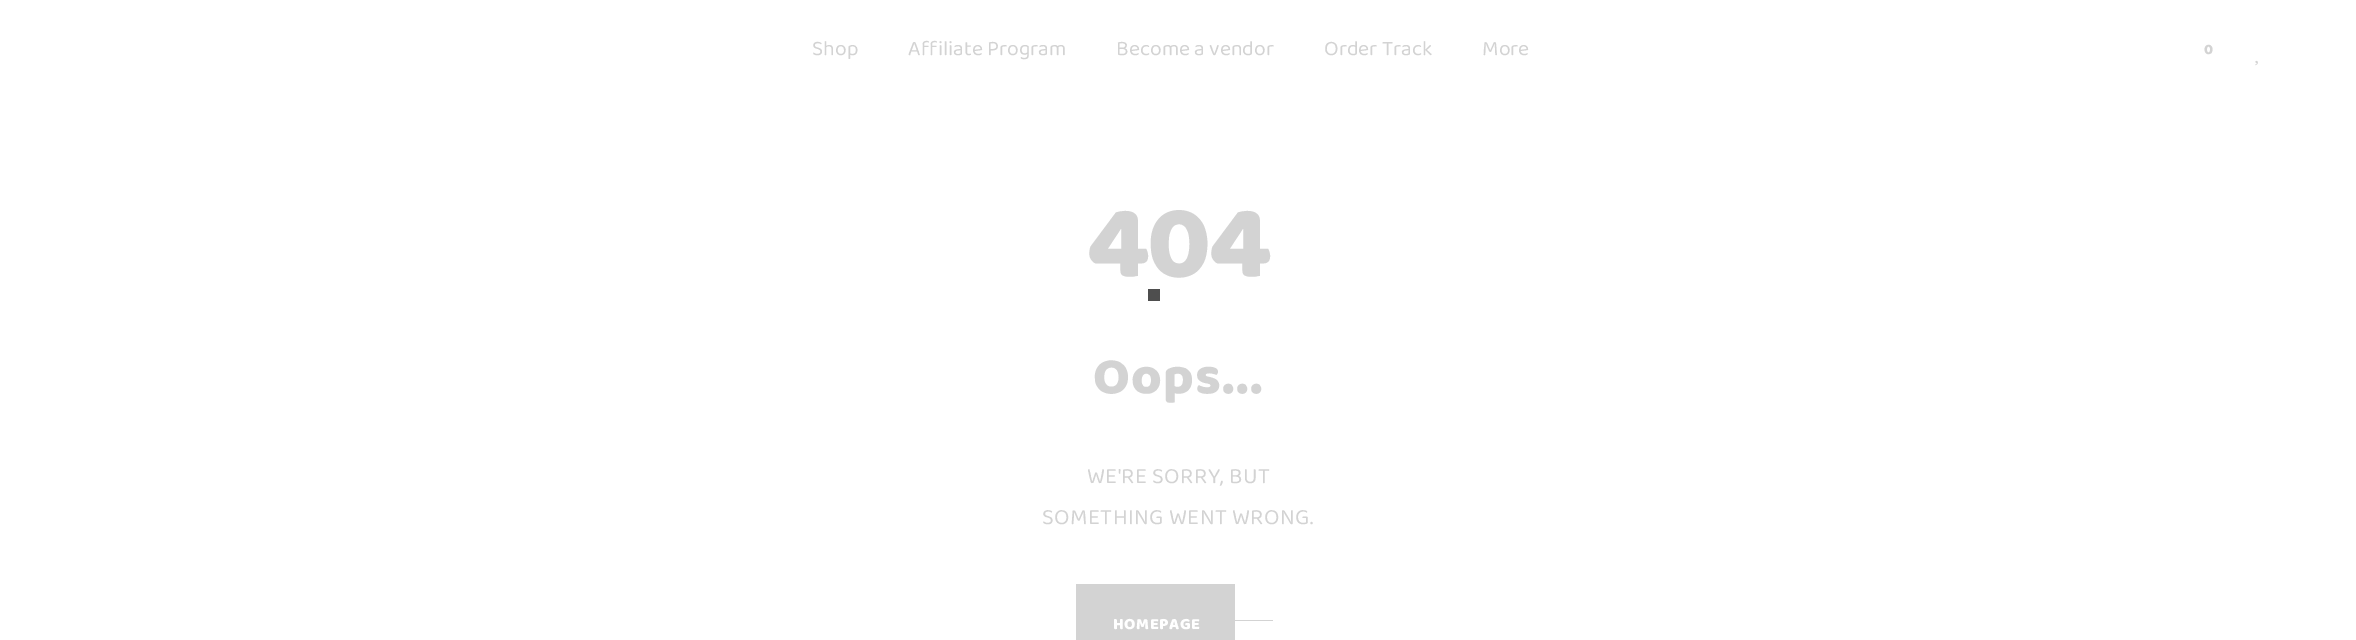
%!PS
<< /PageSize [2356 640] >> setpagedevice
/rgb { 3 { 255 div 3 1 roll } repeat setrgbcolor } def
/font { [ exch dup neg 0 0 3 -1 roll 0 0 ] selectfont } def
/text { moveto show } def
/picture { 5 dict begin { /h /w /y /x /name } { exch def } forall
  gsave x y translate w h scale
  w h 8 [w 0 0 h 0 0] name (r) file false 3 colorimage grestore end } def
0 640 translate 1 -1 scale
4 setmiterlimit
255 255 255 rgb
0 0 2356 640 rectfill
(img_01.rgb) 2255 60 3 6 picture
211 211 211 rgb
1076 584 159 56 rectfill
1235 620 38 1 rectfill
78 78 78 rgb
1148 289 12 12 rectfill
/BalooBhaijaan2-Regular 21.25 font
211 211 211 rgb
(Shop) 812 55 text
(Affiliate Program) 908 55 text
(Become a vendor) 1116 55 text
(Order Track) 1324 55 text
(More) 1482 55 text
/BalooBhaijaan2-ExtraBold 15 font
(0) 2204 54 text
/BalooBhaijaan2-ExtraBold 106 font
1086 276 moveto -3 0 (404) ashow
/BalooBhaijaan2-ExtraBold 52.5 font
1093 393 moveto 1.25 0 (Oops...) ashow
/BalooBhaijaan2-Regular 22.5 font
1087 483 moveto 0.4 0 (WE'RE SORRY, BUT) ashow
1042 524 moveto 0.4 0 (SOMETHING WENT WRONG.) ashow
/BalooBhaijaan2-ExtraBold 16.25 font
255 255 255 rgb
1113 629 moveto 0.5 0 (HOMEPAGE) ashow
showpage
